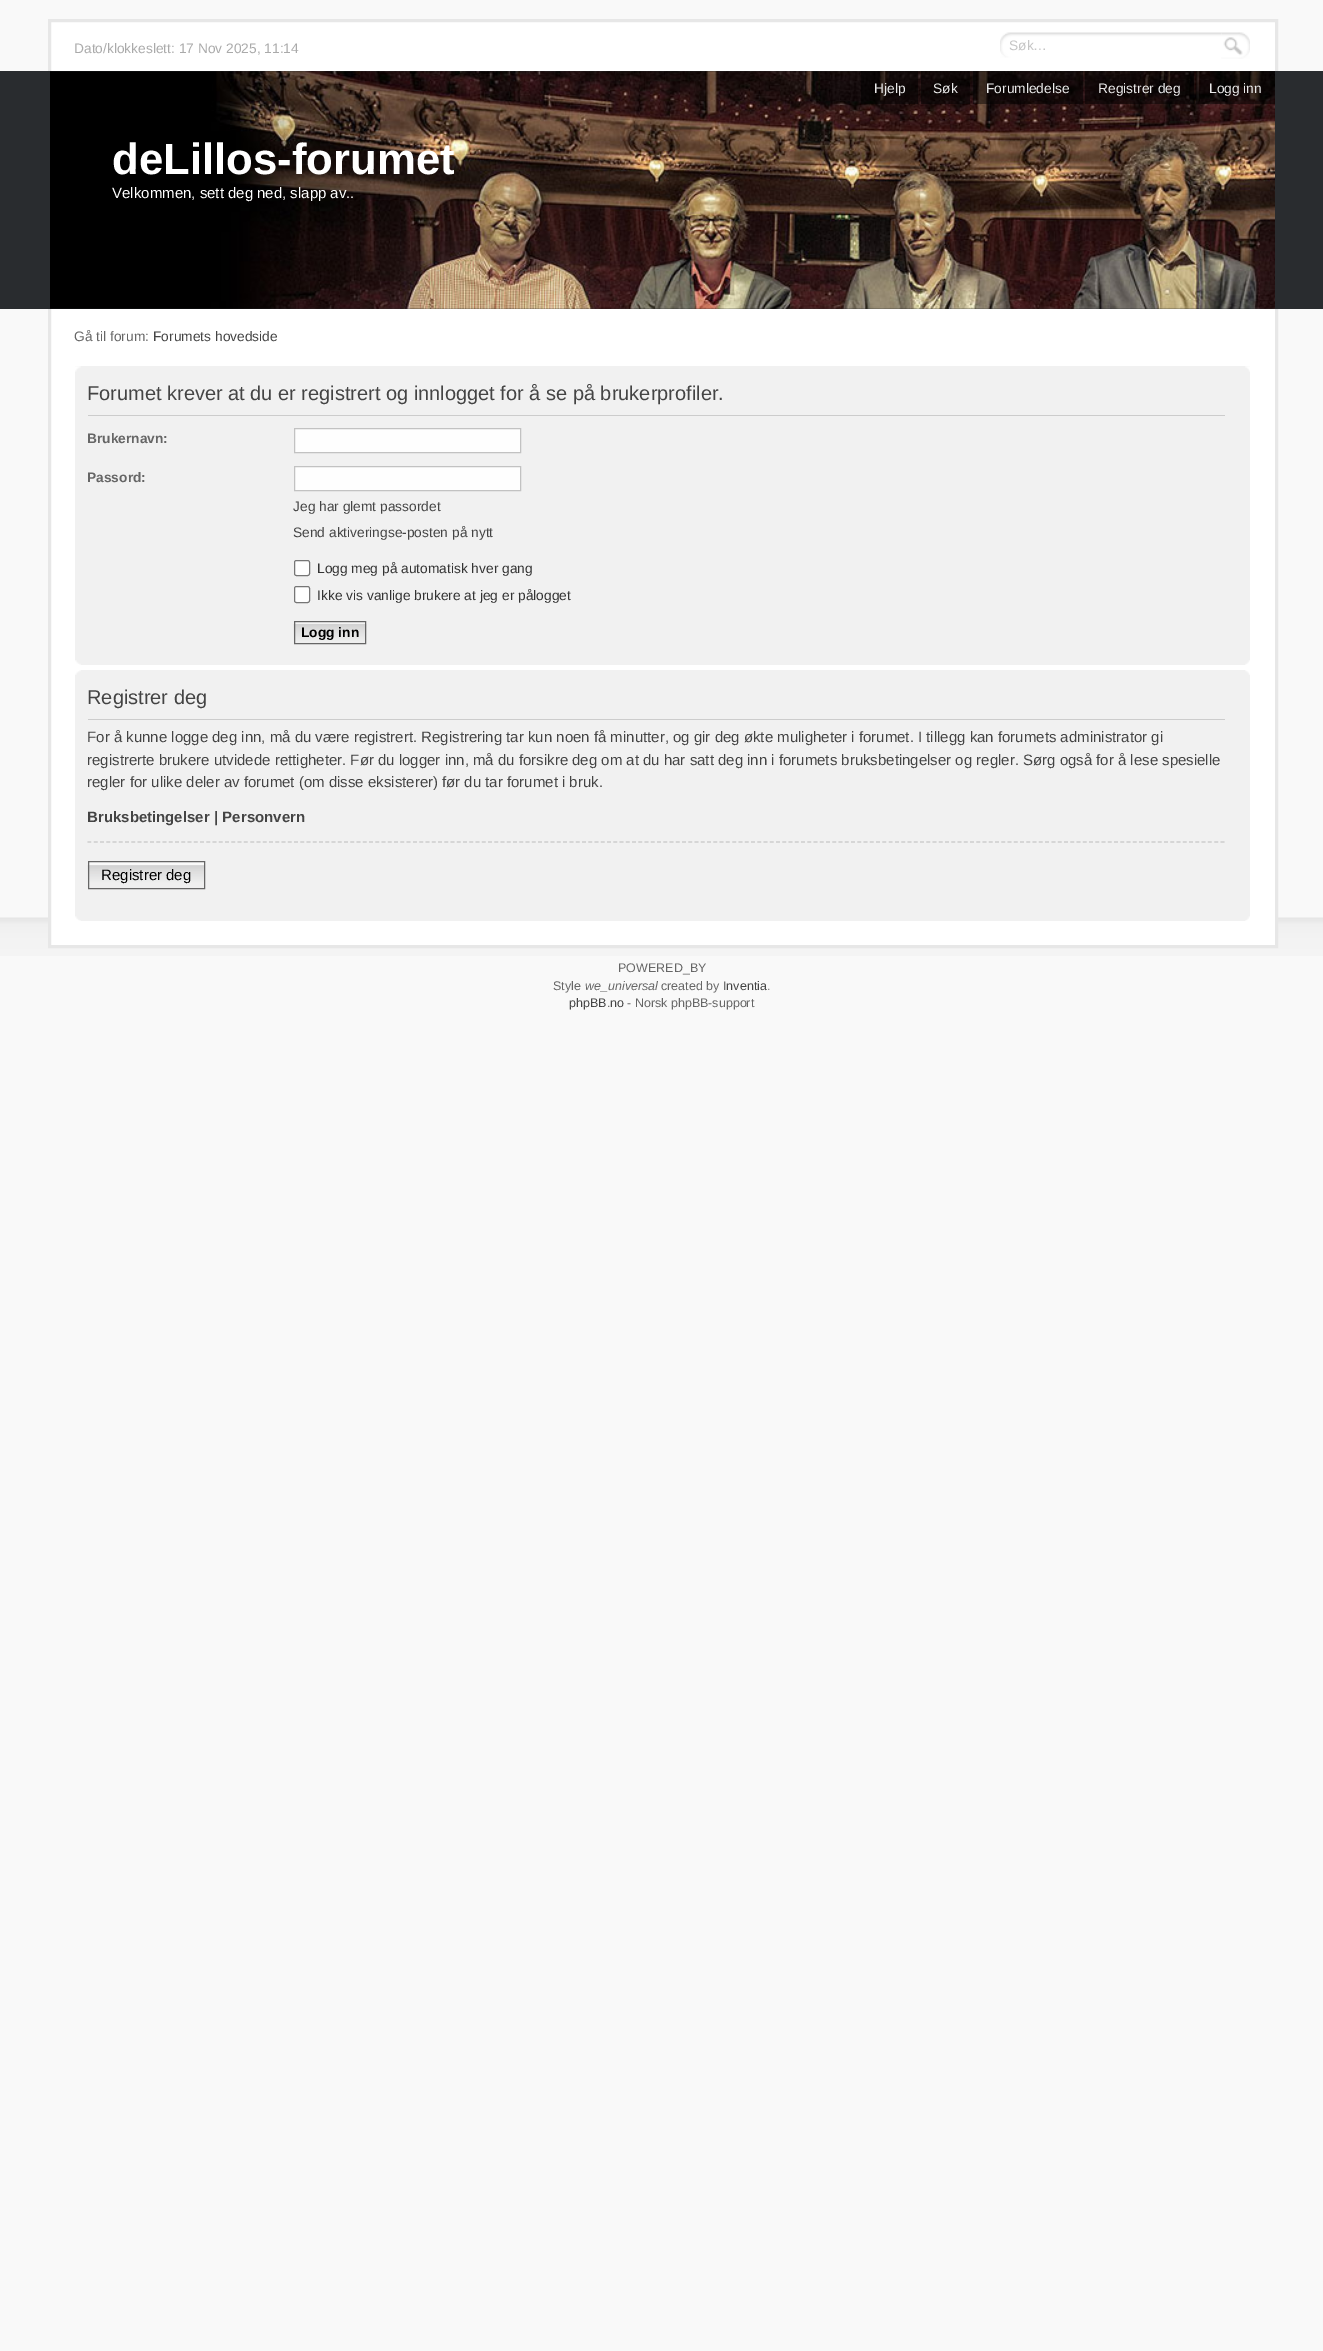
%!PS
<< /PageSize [1323 2351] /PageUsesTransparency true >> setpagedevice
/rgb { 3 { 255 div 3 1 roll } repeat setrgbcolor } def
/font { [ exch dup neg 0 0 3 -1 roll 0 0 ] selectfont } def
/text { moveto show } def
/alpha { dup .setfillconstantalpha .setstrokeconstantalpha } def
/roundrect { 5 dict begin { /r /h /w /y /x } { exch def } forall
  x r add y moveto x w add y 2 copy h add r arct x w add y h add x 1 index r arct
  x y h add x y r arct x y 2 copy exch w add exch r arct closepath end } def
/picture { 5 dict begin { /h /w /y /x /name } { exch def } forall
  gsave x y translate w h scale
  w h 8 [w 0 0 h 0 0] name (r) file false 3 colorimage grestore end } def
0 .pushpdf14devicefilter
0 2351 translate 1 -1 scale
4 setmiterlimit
249 249 249 rgb
0 0 1323 2351 rectfill
(img_14.rgb) 0 917 1323 39 picture
255 255 255 rgb
49.5 20.5 moveto 1227 0 rlineto 0 926 rlineto -1227 0 rlineto closepath gsave fill grestore
231 231 231 rgb
3 setlinewidth
stroke
(img_01.rgb) 1000 32 222 26 picture
(img_02.rgb) 1221 32 29 27 picture
41 44 47 rgb
0 71 1323 238 rectfill
(img_03.rgb) 50 71 1225 238 picture
0.49 alpha
0 0 0 rgb
861 71 57 33 rectfill
921 71 49 33 rectfill
973 71 110 33 rectfill
1085 71 109 33 rectfill
1196 71 79 33 rectfill
1 alpha
241 241 241 rgb
75 366 1175 299 rectfill
(img_04.rgb) 75 366 6 6 picture
(img_05.rgb) 1245 366 5 6 picture
204 204 204 rgb
88 415 1137 1 rectfill
254 254 254 rgb
294.5 428.5 moveto 226 0 rlineto 0 24 rlineto -226 0 rlineto closepath gsave fill grestore
194 194 194 rgb
1 setlinewidth
stroke
254 254 254 rgb
294.5 466.5 moveto 226 0 rlineto 0 24 rlineto -226 0 rlineto closepath gsave fill grestore
194 194 194 rgb
stroke
255 255 255 rgb
294.5 560.5 15 15 2 roundrect gsave fill grestore
118 118 118 rgb
stroke
255 255 255 rgb
294.5 586.5 15 16 2 roundrect gsave fill grestore
118 118 118 rgb
stroke
250 250 250 rgb
295 622 70 1 rectfill
(img_06.rgb) 293 623 74 21 picture
102 102 102 rgb
294.5 621.5 71 22 rectstroke
(img_07.rgb) 75 660 6 5 picture
(img_08.rgb) 1245 660 5 5 picture
241 241 241 rgb
75 670 1175 251 rectfill
(img_09.rgb) 75 670 6 5 picture
(img_10.rgb) 1245 670 5 5 picture
204 204 204 rgb
88 719 1137 1 rectfill
1.2 setlinewidth
[3.75 2.51] 0 setdash
87.5 842 moveto 1137.5 0 rlineto stroke
(img_11.rgb) 87 865 117 24 picture
250 250 250 rgb
89 862 115 3 rectfill
102 102 102 rgb
1 setlinewidth
[] 0 setdash
88.5 861.5 116 27 rectstroke
(img_12.rgb) 75 916 6 5 picture
(img_13.rgb) 1245 916 5 5 picture
/LiberationSans-Regular 13.75 font
170 170 170 rgb
(Dato/klokkeslett: 17 Nov 2025, 11:14) 74 53 text
197 197 197 rgb
(Søk…) 1009 50 text
234 234 234 rgb
(Hjelp) 874 93 text
(Søk) 933 93 text
(Forumledelse) 986 93 text
(Registrer deg) 1098 93 text
(Logg inn) 1209 93 text
/LiberationSans-Bold 43.75 font
255 255 255 rgb
(deLillos-forumet) 112 174 text
/LiberationSans-Regular 15 font
(Velkommen, sett deg ned, slapp av..) 112 198 text
/LiberationSans-Regular 13.75 font
102 102 102 rgb
(Gå til forum:) 74 341 text
68 68 68 rgb
(Forumets hovedside) 153 341 text
/LiberationSans-Regular 20 font
(Forumet krever at du er registrert og innlogget for å se på brukerprofiler.) 87 400 text
gsave
88 423 1137 38 rectclip
/LiberationSans-Bold 13.75 font
102 102 102 rgb
(Brukernavn:) 87 443 text
grestore
gsave
88 461 1137 92 rectclip
/LiberationSans-Bold 13.75 font
102 102 102 rgb
(Passord:) 87 482 text
grestore
/LiberationSans-Regular 13.75 font
(Jeg har glemt passordet) 293 511 text
(Send aktiveringse-posten på nytt) 293 537 text
51 51 51 rgb
(Logg meg på automatisk hver gang) 317 573 text
(Ikke vis vanlige brukere at jeg er pålogget) 317 600 text
/LiberationSans-Bold 13.75 font
0 0 0 rgb
(Logg inn) 301 637 text
/LiberationSans-Regular 20 font
68 68 68 rgb
(Registrer deg) 87 704 text
/LiberationSans-Regular 15 font
(For å kunne logge deg inn, må du være registrert. Registrering tar kun noen få minutter, og gir deg økte muligheter i forumet. I tillegg kan forumets administrator gi) 87 742 text
gsave
88 676 1150 239 rectclip
(registrerte brukere utvidede rettigheter. Før du logger inn, må du forsikre deg om at du har satt deg inn i forumets bruksbetingelser og regler. Sørg også for å lese spesielle) 87 765 text
(regler for ulike deler av forumet \(om disse eksisterer\) før du tar forumet i bruk.) 87 787 text
/LiberationSans-Bold 15 font
(Bruksbetingelser) 87 822 text
grestore
/LiberationSans-Bold 15 font
(| Personvern) 214 822 text
/LiberationSans-Regular 15 font
0 0 0 rgb
(Registrer deg) 101 880 text
/LiberationSans-Regular 12.5 font
102 102 102 rgb
(POWERED_BY) 618 972 text
(Style) 553 990 text
/LiberationSans-Italic 12.5 font
(we_universal) 585 990 text
/LiberationSans-Regular 12.5 font
(created by) 661 990 text
68 68 68 rgb
(Inventia) 723 990 text
102 102 102 rgb
(.) 767 990 text
68 68 68 rgb
(phpBB.no) 569 1007 text
102 102 102 rgb
(- Norsk phpBB-support) 627 1007 text
.poppdf14devicefilter showpage
